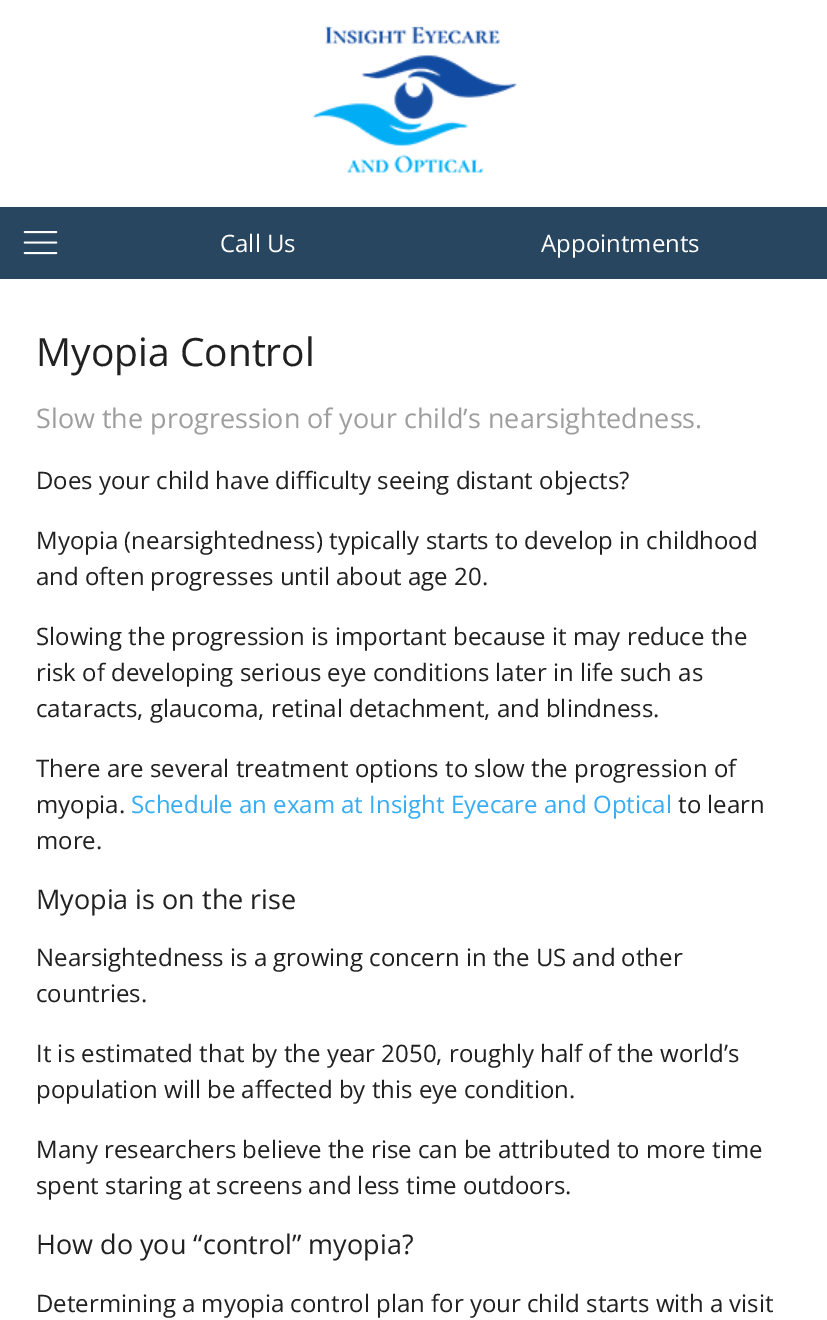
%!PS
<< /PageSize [827 1320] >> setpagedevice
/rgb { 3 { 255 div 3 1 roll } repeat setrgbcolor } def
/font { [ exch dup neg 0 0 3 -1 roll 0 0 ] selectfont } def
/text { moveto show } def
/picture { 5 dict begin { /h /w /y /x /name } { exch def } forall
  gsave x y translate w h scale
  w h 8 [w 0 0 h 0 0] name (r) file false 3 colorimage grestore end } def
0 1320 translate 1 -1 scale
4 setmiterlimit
255 255 255 rgb
0 0 827 1320 rectfill
(img_01.rgb) 313 26 204 147 picture
41 70 97 rgb
0 207 827 72 rectfill
(img_02.rgb) 23 231 35 24 picture
/OpenSans-Regular 24 font
255 255 255 rgb
(Call Us) 220 252 text
(Appointments) 541 252 text
/OpenSans-Regular 39 font
33 33 33 rgb
(Myopia Control) 36 366 text
/OpenSans-Regular 27 font
158 158 158 rgb
(Slow the progression of your child’s nearsightedness.) 36 428 text
/OpenSans-Regular 24 font
33 33 33 rgb
(Does your child have difficulty seeing distant objects?) 36 489 text
(Myopia \(nearsightedness\) typically starts to develop in childhood) 36 549 text
(and often progresses until about age 20.) 36 585 text
(Slowing the progression is important because it may reduce the) 36 645 text
(risk of developing serious eye conditions later in life such as) 36 681 text
(cataracts, glaucoma, retinal detachment, and blindness.) 36 717 text
(There are several treatment options to slow the progression of) 36 777 text
(myopia.) 36 813 text
54 173 244 rgb
(Schedule an exam at Insight Eyecare and Optical) 131 813 text
33 33 33 rgb
(to learn) 678 813 text
(more.) 36 849 text
/OpenSans-Regular 27 font
(Myopia is on the rise) 36 909 text
/OpenSans-Regular 24 font
(Nearsightedness is a growing concern in the US and other) 36 966 text
(countries.) 36 1002 text
(It is estimated that by the year 2050, roughly half of the world’s) 36 1062 text
(population will be affected by this eye condition.) 36 1098 text
(Many researchers believe the rise can be attributed to more time) 36 1158 text
(spent staring at screens and less time outdoors.) 36 1194 text
/OpenSans-Regular 27 font
(How do you “control” myopia?) 36 1254 text
/OpenSans-Regular 24 font
(Determining a myopia control plan for your child starts with a visit) 36 1312 text
showpage
